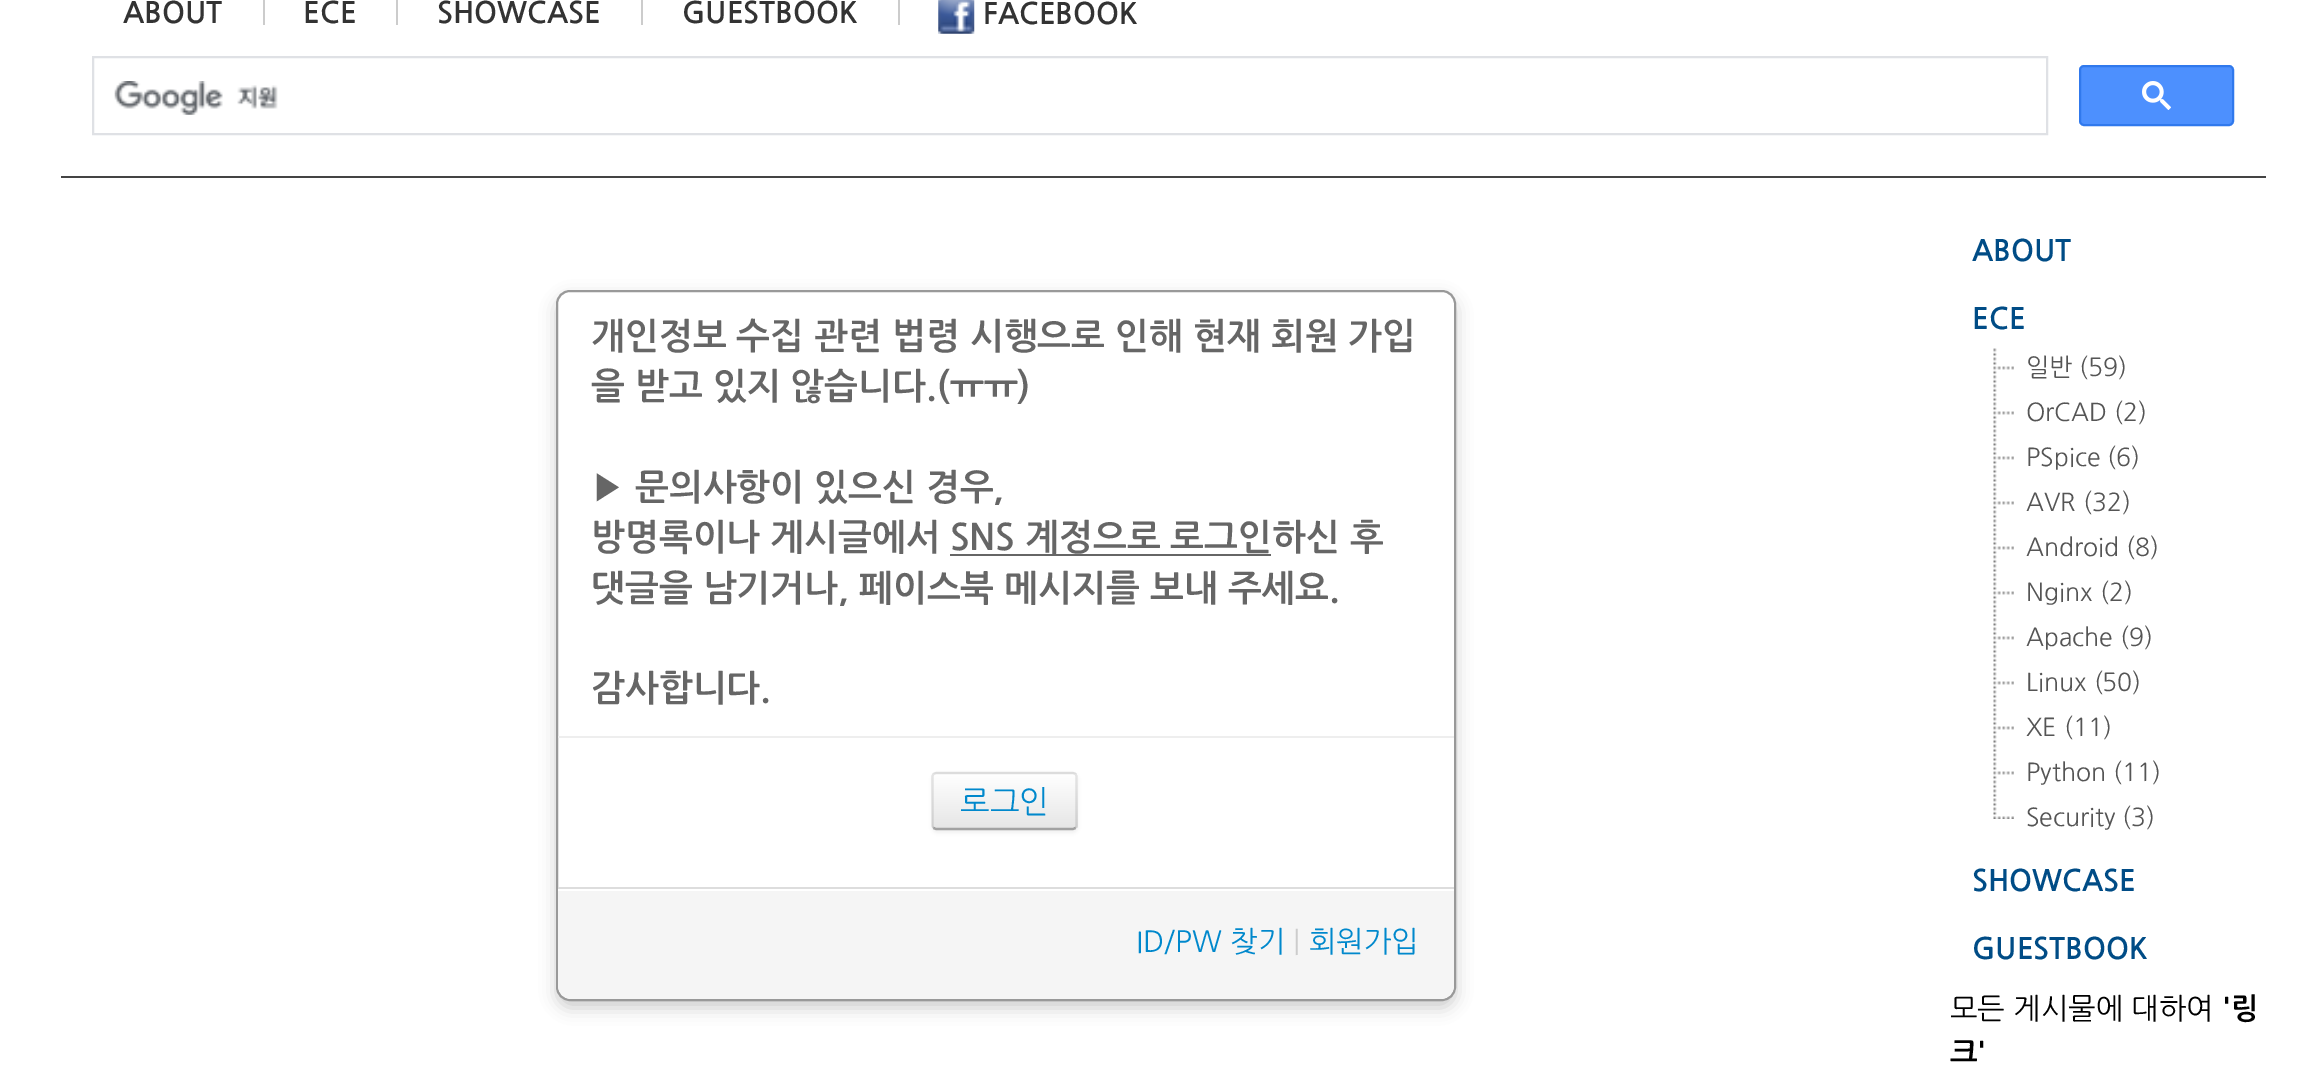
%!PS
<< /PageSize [2323 1082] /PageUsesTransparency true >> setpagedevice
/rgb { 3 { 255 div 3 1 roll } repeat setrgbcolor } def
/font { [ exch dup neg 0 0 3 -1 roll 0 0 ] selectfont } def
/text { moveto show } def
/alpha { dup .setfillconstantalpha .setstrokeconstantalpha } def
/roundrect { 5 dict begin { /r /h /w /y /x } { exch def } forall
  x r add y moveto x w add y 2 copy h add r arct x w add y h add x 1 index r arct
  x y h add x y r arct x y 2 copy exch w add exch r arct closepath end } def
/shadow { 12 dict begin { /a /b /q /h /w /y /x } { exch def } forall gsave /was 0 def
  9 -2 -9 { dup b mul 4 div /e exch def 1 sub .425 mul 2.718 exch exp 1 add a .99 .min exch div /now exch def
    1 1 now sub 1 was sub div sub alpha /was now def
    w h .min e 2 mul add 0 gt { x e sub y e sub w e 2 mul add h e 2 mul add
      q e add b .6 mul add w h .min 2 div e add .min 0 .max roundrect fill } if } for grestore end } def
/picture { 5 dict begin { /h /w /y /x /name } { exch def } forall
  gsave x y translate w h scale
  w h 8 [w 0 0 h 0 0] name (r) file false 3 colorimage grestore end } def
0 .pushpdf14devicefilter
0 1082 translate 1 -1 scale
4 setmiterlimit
255 255 255 rgb
0 0 2323 1082 rectfill
68 68 68 rgb
61 176 2205 2 rectfill
204 204 204 rgb
263 0 2 25 rectfill
396 0 2 25 rectfill
641 0 2 25 rectfill
898 0 2 25 rectfill
(img_01.rgb) 938 0 37 34 picture
223 225 229 rgb
2 setlinewidth
93 57 1954 77 rectstroke
(img_02.rgb) 114 81 164 34 picture
77 144 254 rgb
2080 66 153 59 4 roundrect gsave fill grestore
48 121 237 rgb
stroke
(img_03.rgb) 2142 81 29 29 picture
204 204 204 rgb
556 297 900 711 14 8 1 shadow
255 255 255 rgb
557 291 898 709 13 roundrect gsave fill grestore
153 153 153 rgb
stroke
238 238 238 rgb
558 736 896 2 rectfill
102 102 102 rgb
950 554 321 2 rectfill
0 0 0 rgb
932 774 146 59 5 2 0.05 shadow
245 245 245 rgb
932 772 146 58 5 roundrect fill
gsave
932 772 146 58 5 roundrect clip newpath
gsave 932 774 moveto 146 0 rlineto 0 54 rlineto -146 0 rlineto closepath clip newpath
<< /ShadingType 2 /ColorSpace /DeviceRGB /Coords [1005 774 1005 828] /Extend [true true] /Function << /FunctionType 2 /Domain [0 1] /C0 [1 1 1] /C1 [0.902 0.902 0.902] /N 1 >> >> shfill grestore
grestore
162 162 162 rgb
2.2 setlinewidth
1075.5 828 moveto -2.5 1 rlineto -137 0 rlineto -2.5 -1 rlineto stroke
0.1 alpha
0 0 0 rgb
933.5 828 moveto -1 -2 rlineto 0 -50 rlineto 1 -2 rlineto 2.5 -1 rlineto 137 0 rlineto 2.5 1 rlineto 1 2 rlineto 0 50 rlineto -1 2 rlineto stroke
1 alpha
245 245 245 rgb
558 887 moveto 896 0 rlineto 0 98 rlineto 0 7.5 -6.5 14 -14 14 rcurveto -868 0 rlineto -7.5 0 -14 -6.5 -14 -14 rcurveto closepath fill
255 255 255 rgb
558 889 896 2 rectfill
221 221 221 rgb
558 887 896 2 rectfill
(img_04.rgb) 1993 348 21 44 picture
(img_05.rgb) 1993 393 21 44 picture
(img_04.rgb) 1993 438 21 44 picture
(img_04.rgb) 1993 483 21 44 picture
(img_04.rgb) 1993 528 21 44 picture
(img_04.rgb) 1993 573 21 44 picture
(img_04.rgb) 1993 618 21 44 picture
(img_04.rgb) 1993 663 21 44 picture
(img_06.rgb) 1993 708 21 44 picture
(img_04.rgb) 1993 753 21 44 picture
(img_07.rgb) 1993 798 21 21 picture
/NanumGothic-Bold 29.25 font
51 51 51 rgb
(ABOUT) 123 23 text
(ECE) 303 23 text
(SHOWCASE) 437 23 text
(GUESTBOOK) 682 23 text
(FACEBOOK) 983 24 text
/NanumGothic-Bold 36 font
102 102 102 rgb
(개인정보 수집 관련 법령 시행으로 인해 현재 회원 가입) 591 349 text
(을 받고 있지 않습니다.\(ㅠㅠ\)) 591 399 text
(▶ 문의사항이 있으신 경우,) 591 500 text
(방명록이나 게시글에서 SNS 계정으로 로그인하신 후) 591 550 text
(댓글을 남기거나, 페이스북 메시지를 보내 주세요.) 591 601 text
(감사합니다.) 591 701 text
/NanumGothic-Regular 31.5 font
0 136 204 rgb
(로그인) 960 813 text
/NanumGothic-Regular 29.25 font
(ID/PW 찾기) 1136 952 text
204 204 204 rgb
(|) 1293 952 text
0 136 204 rgb
(회원가입) 1309 952 text
/NanumGothic-Bold 29.25 font
0 76 134 rgb
(ABOUT) 1972 261 text
(ECE) 1972 329 text
/NanumGothic-Regular 24.75 font
85 85 85 rgb
(일반 \(59\)) 2026 376 text
(OrCAD \(2\)) 2026 421 text
(PSpice \(6\)) 2026 466 text
(AVR \(32\)) 2026 511 text
(Android \(8\)) 2026 556 text
(Nginx \(2\)) 2026 601 text
(Apache \(9\)) 2026 646 text
(Linux \(50\)) 2026 691 text
(XE \(11\)) 2026 736 text
(Python \(11\)) 2026 781 text
(Security \(3\)) 2026 826 text
/NanumGothic-Bold 29.25 font
0 76 134 rgb
(SHOWCASE) 1972 891 text
(GUESTBOOK) 1972 959 text
/NanumGothic-Regular 29.25 font
0 0 0 rgb
(모든 게시물에 대하여) 1950 1019 text
/NanumGothic-Bold 29.25 font
('링) 2222 1019 text
(크') 1950 1063 text
.poppdf14devicefilter showpage
